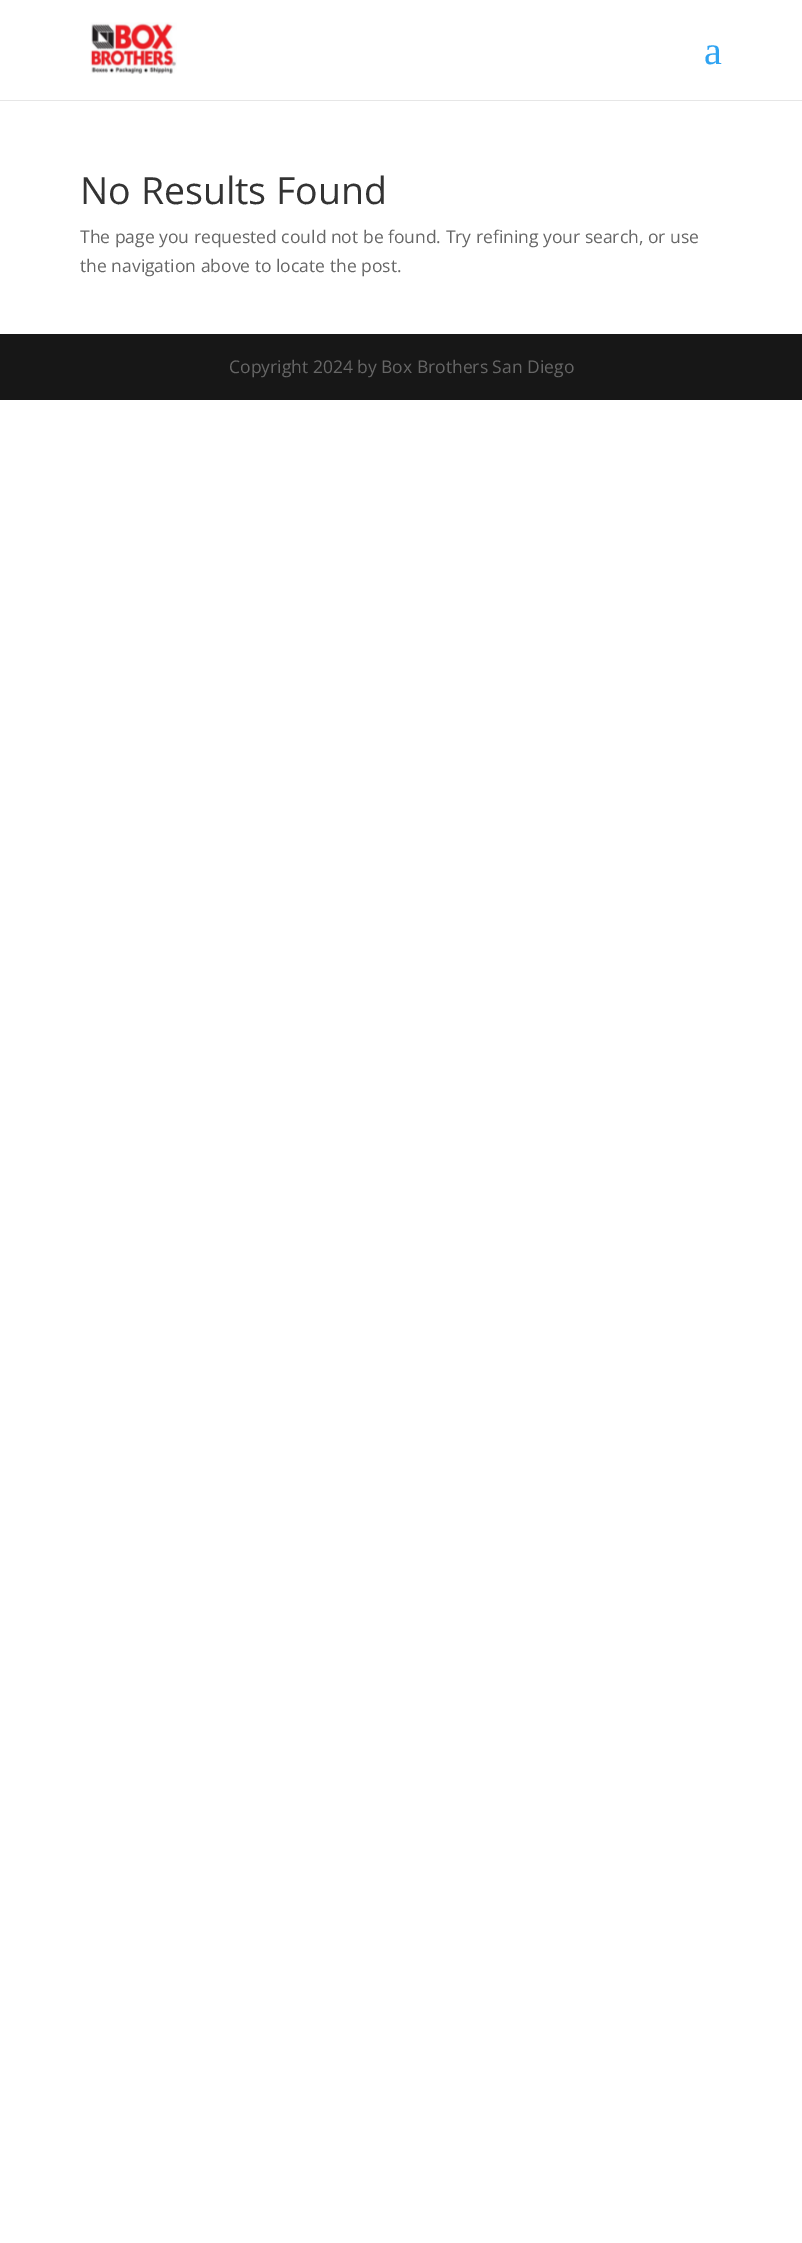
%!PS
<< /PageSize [802 2243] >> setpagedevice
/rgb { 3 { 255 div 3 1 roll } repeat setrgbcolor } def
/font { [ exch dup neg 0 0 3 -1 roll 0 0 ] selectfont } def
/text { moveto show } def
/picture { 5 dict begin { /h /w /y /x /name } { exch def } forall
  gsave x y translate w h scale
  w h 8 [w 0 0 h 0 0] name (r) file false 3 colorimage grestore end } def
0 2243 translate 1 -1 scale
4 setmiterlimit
255 255 255 rgb
0 0 802 2243 rectfill
230 230 230 rgb
0 100 moveto 0 1 rlineto 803 0 rlineto 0 -100 rlineto -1 0 rlineto 0 99 rlineto closepath fill
(img_01.rgb) 90 22 87 52 picture
23 23 23 rgb
0 334 802 66 rectfill
/LiberationSerif-Regular 40 font
46 163 242 rgb
(a) 704 64 text
/OpenSans-Regular 37.5 font
51 51 51 rgb
(No Results Found) 80 204 text
/OpenSans-Regular 17.5 font
102 102 102 rgb
(The page you requested could not be found. Try refining your search, or use) 80 243 text
(the navigation above to locate the post.) 80 272 text
(Copyright 2024 by Box Brothers San Diego) 229 373 text
showpage
